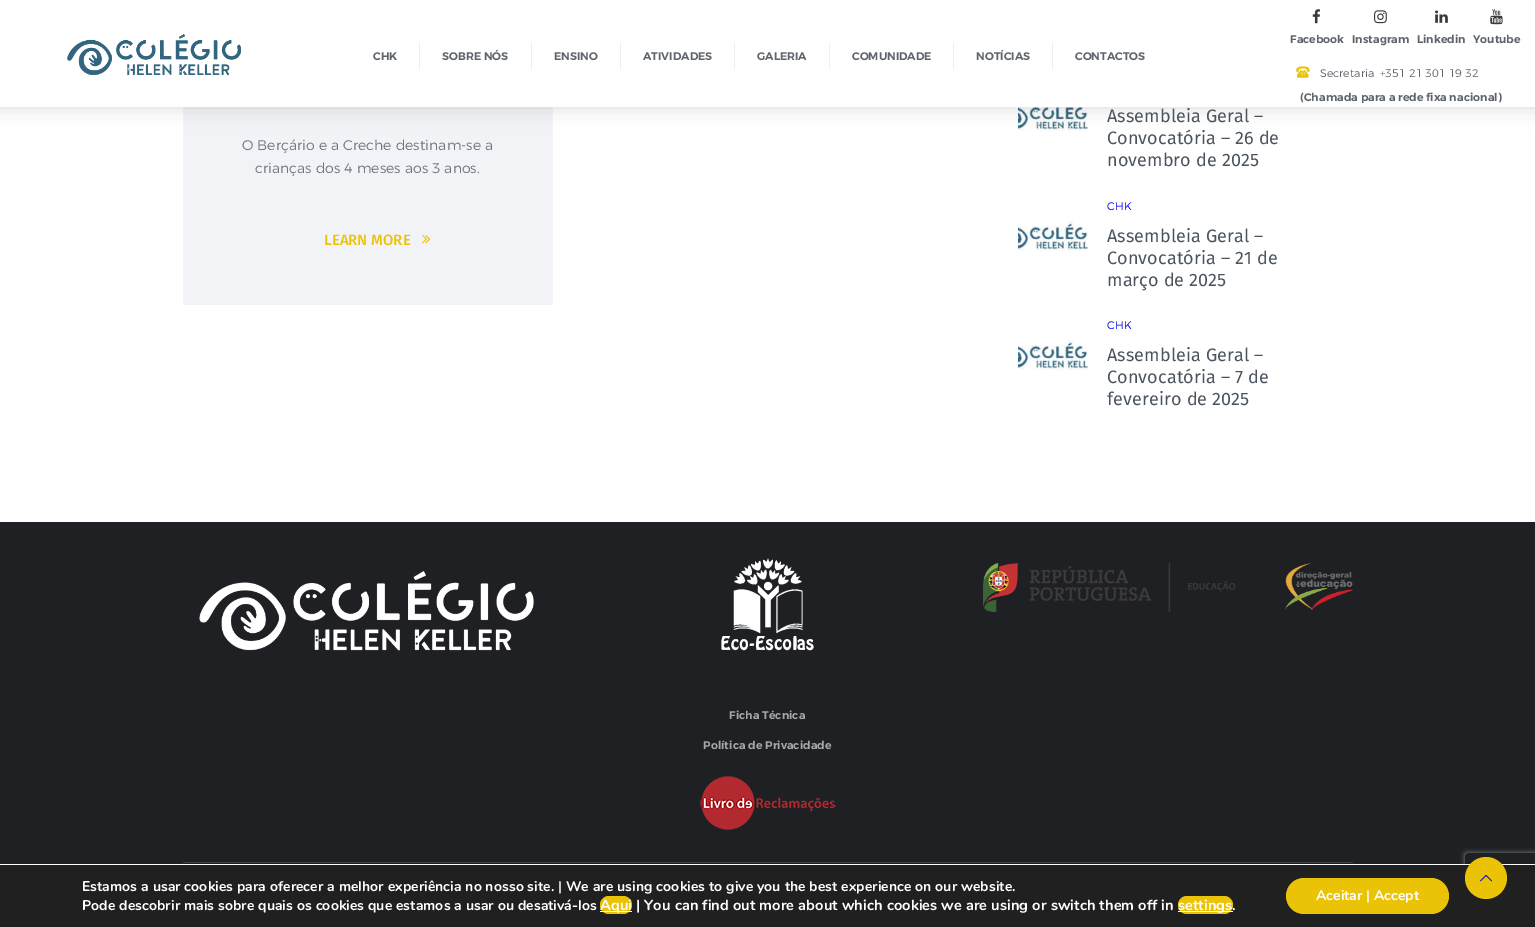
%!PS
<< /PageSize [1535 927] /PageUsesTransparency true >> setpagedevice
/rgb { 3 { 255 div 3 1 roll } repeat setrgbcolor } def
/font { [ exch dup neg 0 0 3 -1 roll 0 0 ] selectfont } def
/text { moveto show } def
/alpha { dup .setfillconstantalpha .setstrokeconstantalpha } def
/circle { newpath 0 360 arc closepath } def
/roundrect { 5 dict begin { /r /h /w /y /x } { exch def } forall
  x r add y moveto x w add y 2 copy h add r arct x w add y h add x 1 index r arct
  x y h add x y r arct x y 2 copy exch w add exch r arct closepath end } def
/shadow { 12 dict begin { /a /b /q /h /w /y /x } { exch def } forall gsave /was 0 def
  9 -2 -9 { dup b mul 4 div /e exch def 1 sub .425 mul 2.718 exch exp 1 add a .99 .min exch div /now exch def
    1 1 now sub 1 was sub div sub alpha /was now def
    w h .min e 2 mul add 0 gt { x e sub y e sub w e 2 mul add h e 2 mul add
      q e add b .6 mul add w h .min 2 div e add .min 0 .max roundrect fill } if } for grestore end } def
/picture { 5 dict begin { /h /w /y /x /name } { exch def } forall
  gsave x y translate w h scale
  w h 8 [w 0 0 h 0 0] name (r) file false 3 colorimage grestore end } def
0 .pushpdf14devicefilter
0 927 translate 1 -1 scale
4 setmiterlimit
255 255 255 rgb
0 0 1535 927 rectfill
242 243 246 rgb
183 107 370 198 rectfill
(img_08.rgb) 1018 107 70 24 picture
0 0 0 rgb
-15 0 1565 107 0 10 0.15 shadow
255 255 255 rgb
0 0 1535 107 rectfill
(img_01.rgb) 67 34 174 41 picture
240 240 240 rgb
419 42 1 28 rectfill
531 42 1 28 rectfill
620 42 1 28 rectfill
734 42 1 28 rectfill
829 42 1 28 rectfill
953 42 1 28 rectfill
1052 42 1 28 rectfill
(img_02.rgb) 1312 9 9 15 picture
(img_03.rgb) 1374 10 13 14 picture
(img_04.rgb) 1435 10 13 13 picture
(img_05.rgb) 1490 9 13 16 picture
(img_06.rgb) 1296 66 14 12 picture
(img_07.rgb) 422 235 9 9 picture
(img_09.rgb) 1018 220 70 31 picture
(img_10.rgb) 1018 339 70 31 picture
31 32 36 rgb
0 522 1535 342 rectfill
(img_11.rgb) 199 571 335 80 picture
(img_12.rgb) 721 558 93 93 picture
(img_13.rgb) 983 563 370 49 picture
(img_14.rgb) 700 776 136 54 picture
64 65 68 rgb
183 862 1170 1 rectfill
gsave
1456 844 moveto 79 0 rlineto 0 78 rlineto -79 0 rlineto closepath 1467 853 moveto 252 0 rlineto 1 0 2 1 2 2 rcurveto 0 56 rlineto 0 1 -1 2 -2 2 rcurveto -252 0 rlineto -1 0 -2 -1 -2 -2 rcurveto 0 -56 rlineto 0 -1 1 -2 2 -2 rcurveto closepath eoclip newpath
128 128 128 rgb
1465 853 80 60 2 2.5 1 shadow
grestore
32 32 32 rgb
0 865 1535 62 rectfill
255 255 255 rgb
1460 864 5 1 rectfill
235 195 6 rgb
600 896 32 18 9 roundrect fill
255 255 255 rgb
600 911 32 1 rectfill
235 195 6 rgb
1178 896 55 18 9 roundrect fill
255 255 255 rgb
1178 911 55 1 rectfill
235 195 6 rgb
1286 878 163 36 18 roundrect fill
1486 878 21 circle fill
(img_15.rgb) 1480 874 12 8 picture
/Montserrat-SemiBold 11 font
93 100 107 rgb
(CHK) 373 60 text
(SOBRE NÓS) 442 60 text
(ENSINO) 554 60 text
(ATIVIDADES) 643 60 text
(GALERIA) 757 60 text
(COMUNIDADE) 852 60 text
(NOTÍCIAS) 976 60 text
(CONTACTOS) 1075 60 text
(Facebook) 1290 43 text
(Instagram) 1352 43 text
(Linkedin) 1417 43 text
(Youtube) 1473 43 text
/Montserrat-Light 11 font
(Secretaria) 1320 77 text
(+351 21 301 19 32) 1380 77 text
/Montserrat-SemiBold 11 font
1300 101 moveto 0.06 0 (\(Chamada para a rede fixa nacional\)) ashow
/Montserrat-Light 14 font
111 120 127 rgb
242 150 moveto 0.06 0 (O Berçário e a Creche destinam-se a) ashow
255 173 moveto 0.06 0 (crianças dos 4 meses aos 3 anos.) ashow
/FiraSans-Medium 15 font
235 195 6 rgb
(LEARN MORE) 324 245 text
/FiraSans-Regular 18 font
74 84 94 rgb
1107 122 moveto 0.1 0 (Assembleia Geral –) ashow
1107 144 moveto 0.1 0 (Convocatória – 26 de) ashow
1107 166 moveto 0.1 0 (novembro de 2025) ashow
/Montserrat-Light 11 font
0 0 238 rgb
1107 210 moveto 0.06 0 (CHK) ashow
/FiraSans-Regular 18 font
74 84 94 rgb
1107 242 moveto 0.1 0 (Assembleia Geral –) ashow
1107 264 moveto 0.1 0 (Convocatória – 21 de) ashow
1107 286 moveto 0.1 0 (março de 2025) ashow
/Montserrat-Light 11 font
0 0 238 rgb
1107 329 moveto 0.06 0 (CHK) ashow
/FiraSans-Regular 18 font
74 84 94 rgb
1107 361 moveto 0.1 0 (Assembleia Geral –) ashow
1107 383 moveto 0.1 0 (Convocatória – 7 de) ashow
1107 405 moveto 0.1 0 (fevereiro de 2025) ashow
/Montserrat-SemiBold 11 font
167 167 167 rgb
729 719 moveto 0.06 0 (Ficha Técnica) ashow
703 749 moveto 0.06 0 (Política de Privacidade) ashow
/Nunito-Bold 14 font
255 255 255 rgb
82 891 moveto 0.06 0 (Estamos a usar cookies para oferecer a melhor experiência no nosso site. | We are using cookies to give you the best experience on our website.) ashow
82 910 moveto 0.06 0 (Pode descobrir mais sobre quais os cookies que estamos a usar ou desativá-los) ashow
/Nunito-Bold 14.65 font
600 910 moveto 0.06 0 (Aqui | You can find out more about which cookies we are using or switch them off in) ashow
1178 910 moveto 0.06 0 (settings.) ashow
/Nunito-Bold 14 font
(Aceitar | Accept) 1316 900 text
.poppdf14devicefilter showpage
